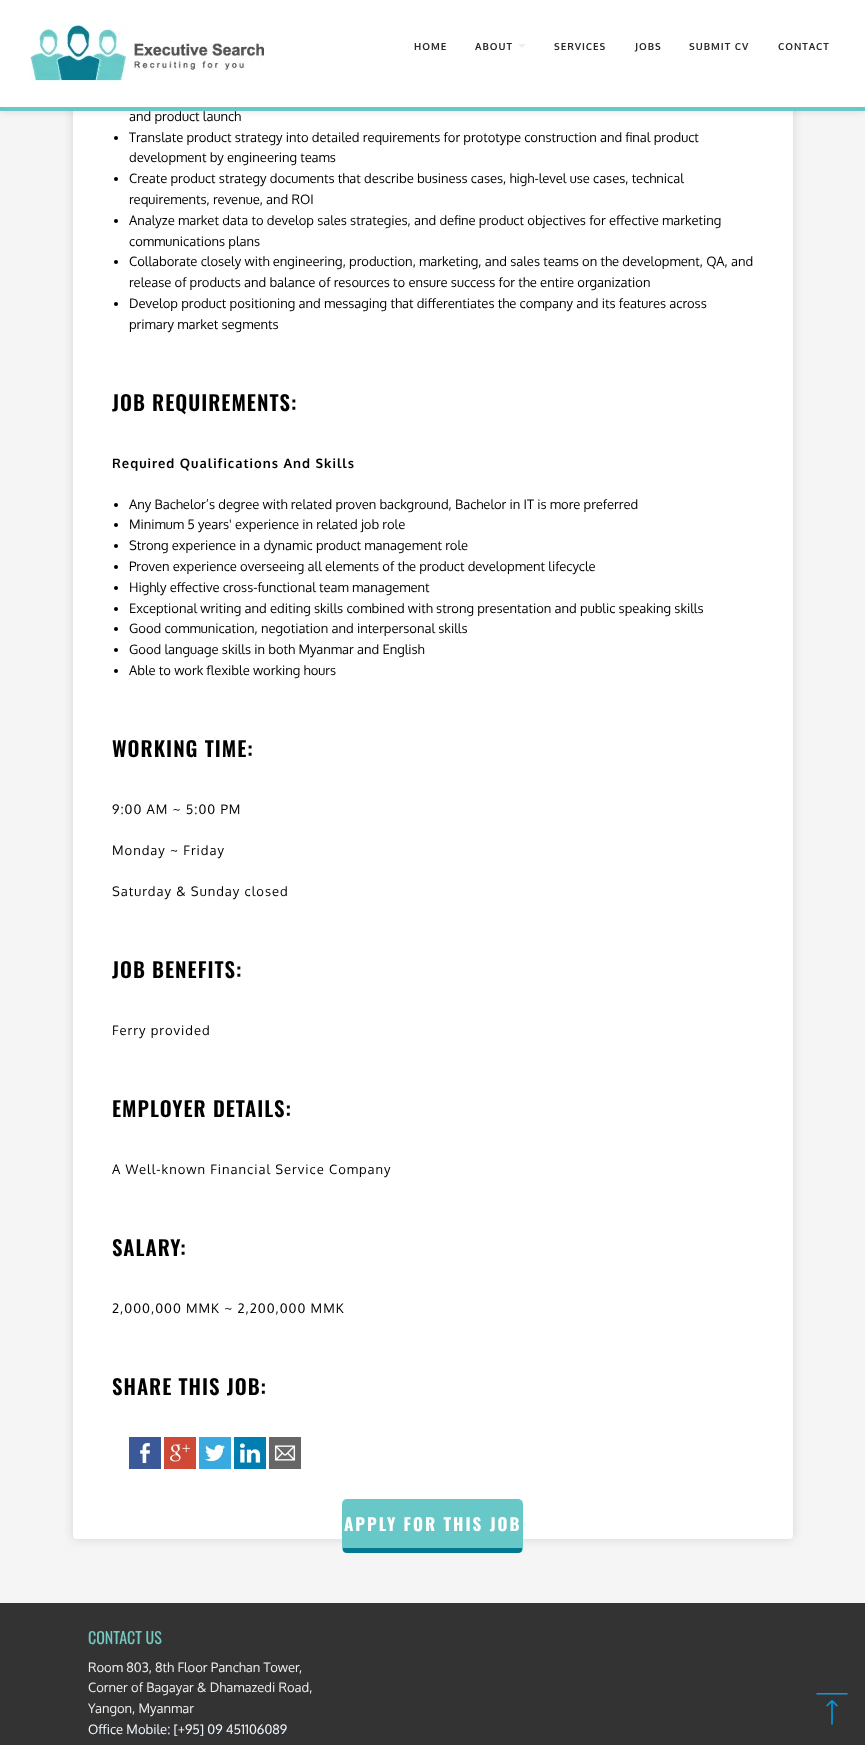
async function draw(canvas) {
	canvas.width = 865;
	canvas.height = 1745;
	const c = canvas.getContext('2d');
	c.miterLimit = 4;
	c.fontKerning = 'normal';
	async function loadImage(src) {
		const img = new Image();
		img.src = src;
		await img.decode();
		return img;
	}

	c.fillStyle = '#f5f5f5';
	c.fillRect(0, 0, 865, 1745);
	c.fillStyle = '#d3d3d3';
	c.filter = 'blur(5px)';
	c.beginPath();
	c.roundRect(73, -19, 720, 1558, 4);
	c.fill();
	c.filter = 'none';
	c.fillStyle = '#fff';
	c.beginPath();
	c.roundRect(73, -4, 720, 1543, 4);
	c.fill();
	c.fillStyle = '#0000001a';
	c.filter = 'blur(3px)';
	c.beginPath();
	c.rect(0, 1, 865, 111);
	c.fill();
	c.filter = 'none';
	c.fillStyle = '#fff';
	c.fillRect(0, 0, 865, 107);
	c.fillStyle = '#68c8c7';
	c.fillRect(0, 107, 865, 4);
	c.drawImage(await loadImage('img1.png'), 29, 22, 236, 62);
	c.letterSpacing = '1px';
	c.font = 'bold 9.75px Oxygen';
	c.fillStyle = '#27292b';
	c.fillText('HOME', 414, 50);
	c.fillText('ABOUT', 475, 50);
	c.fillStyle = '#f0eded';
	c.beginPath();
	c.moveTo(518, 44);
	c.lineTo(526, 44);
	c.lineTo(522, 48);
	c.closePath();
	c.fill();
	c.fillStyle = '#27292b';
	for (const [text, x, y] of [
		['SERVICES', 554, 50],
		['JOBS', 635, 50],
		['SUBMIT CV', 689, 50],
		['CONTACT', 778, 50],
	]) {
		c.fillText(text, x, y);
	}
	c.letterSpacing = '0px';
	c.font = '13px Oxygen';
	c.fillStyle = '#000';
	c.fillText('and product launch', 129, 121);
	c.beginPath();
	c.arc(116, 138, 2, 0, 2 * Math.PI);
	c.fill();
	c.fillText('Translate product strategy into detailed requirements for prototype construction and final product', 129, 142);
	c.fillText('development by engineering teams', 129, 162);
	c.beginPath();
	c.arc(116, 179, 2, 0, 2 * Math.PI);
	c.fill();
	c.fillText('Create product strategy documents that describe business cases, high-level use cases, technical', 129, 183);
	c.fillText('requirements, revenue, and ROI', 129, 204);
	c.beginPath();
	c.arc(116, 221, 2, 0, 2 * Math.PI);
	c.fill();
	c.fillText('Analyze market data to develop sales strategies, and define product objectives for effective marketing', 129, 225);
	c.fillText('communications plans', 129, 246);
	c.beginPath();
	c.arc(116, 262, 2, 0, 2 * Math.PI);
	c.fill();
	c.fillText('Collaborate closely with engineering, production, marketing, and sales teams on the development, QA, and', 129, 266);
	c.fillText('release of products and balance of resources to ensure success for the entire organization', 129, 287);
	c.beginPath();
	c.arc(116, 304, 2, 0, 2 * Math.PI);
	c.fill();
	c.fillText('Develop product positioning and messaging that differentiates the company and its features across', 129, 308);
	c.fillText('primary market segments', 129, 329);
	c.letterSpacing = '1px';
	c.font = '600 20.75px Oswald';
	c.fillText('JOB REQUIREMENTS:', 112, 411);
	c.font = 'bold 13px Oxygen';
	c.fillText('Required Qualifications And Skills', 112, 468);
	c.beginPath();
	c.arc(116, 505, 2, 0, 2 * Math.PI);
	c.fill();
	c.letterSpacing = '0px';
	c.font = '13px Oxygen';
	c.fillText('Any Bachelor’s degree with related proven background, Bachelor in IT is more preferred', 129, 509);
	c.beginPath();
	c.arc(116, 525, 2, 0, 2 * Math.PI);
	c.fill();
	c.fillText('Minimum 5 years\' experience in related job role', 129, 529);
	c.beginPath();
	c.arc(116, 546, 2, 0, 2 * Math.PI);
	c.fill();
	c.fillText('Strong experience in a dynamic product management role', 129, 550);
	c.beginPath();
	c.arc(116, 567, 2, 0, 2 * Math.PI);
	c.fill();
	c.fillText('Proven experience overseeing all elements of the product development lifecycle', 129, 571);
	c.beginPath();
	c.arc(116, 588, 2, 0, 2 * Math.PI);
	c.fill();
	c.fillText('Highly effective cross-functional team management', 129, 592);
	c.beginPath();
	c.arc(116, 609, 2, 0, 2 * Math.PI);
	c.fill();
	c.fillText('Exceptional writing and editing skills combined with strong presentation and public speaking skills', 129, 613);
	c.beginPath();
	c.arc(116, 629, 2, 0, 2 * Math.PI);
	c.fill();
	c.fillText('Good communication, negotiation and interpersonal skills', 129, 633);
	c.beginPath();
	c.arc(116, 650, 2, 0, 2 * Math.PI);
	c.fill();
	c.fillText('Good language skills in both Myanmar and English', 129, 654);
	c.beginPath();
	c.arc(116, 671, 2, 0, 2 * Math.PI);
	c.fill();
	c.fillText('Able to work flexible working hours', 129, 675);
	c.letterSpacing = '1px';
	c.font = '600 20.75px Oswald';
	c.fillText('WORKING TIME:', 112, 757);
	c.font = '13px Oxygen';
	for (const [text, x, y] of [
		['9:00 AM ~ 5:00 PM', 112, 814],
		['Monday ~ Friday', 112, 855],
		['Saturday & Sunday closed', 112, 896],
	]) {
		c.fillText(text, x, y);
	}
	c.font = '600 20.75px Oswald';
	c.fillText('JOB BENEFITS:', 112, 978);
	c.font = '13px Oxygen';
	c.fillText('Ferry provided', 112, 1035);
	c.font = '600 20.75px Oswald';
	c.fillText('EMPLOYER DETAILS:', 112, 1117);
	c.font = '13px Oxygen';
	c.fillText('A Well-known Financial Service Company', 112, 1174);
	c.font = '600 20.75px Oswald';
	c.fillText('SALARY:', 112, 1256);
	c.font = '13px Oxygen';
	c.fillText('2,000,000 MMK ~ 2,200,000 MMK', 112, 1313);
	c.font = '600 20.75px Oswald';
	c.fillText('SHARE THIS JOB:', 112, 1395);
	c.drawImage(await loadImage('img2.png'), 129, 1437, 32, 32);
	c.drawImage(await loadImage('img3.png'), 164, 1437, 32, 32);
	c.drawImage(await loadImage('img4.png'), 199, 1437, 32, 32);
	c.drawImage(await loadImage('img5.png'), 234, 1437, 32, 32);
	c.drawImage(await loadImage('img6.png'), 269, 1437, 32, 32);
	c.fillStyle = '#68c8c7';
	c.beginPath();
	c.roundRect(342, 1499, 181, 54, 5);
	c.fill();
	c.fillStyle = '#01798f';
	c.beginPath();
	c.moveTo(347, 1553);
	c.lineTo(518, 1553);
	c.bezierCurveTo(520, 1553, 522, 1552, 522, 1550);
	c.lineTo(522, 1548);
	c.lineTo(343, 1548);
	c.lineTo(343, 1550);
	c.bezierCurveTo(343, 1552, 345, 1553, 347, 1553);
	c.closePath();
	c.fill();
	c.letterSpacing = '2px';
	c.font = 'bold 17px Oswald';
	c.fillStyle = '#fff';
	c.fillText('APPLY FOR THIS JOB', 344, 1531);
	c.fillStyle = '#333';
	c.fillRect(0, 1603, 865, 142);
	c.letterSpacing = '0px';
	c.font = '16px Oswald';
	c.fillStyle = '#76c9c0';
	c.fillText('CONTACT US', 88, 1644);
	c.font = '13px Oxygen';
	c.fillStyle = '#f0eded';
	for (const [text, x, y] of [
		['Room 803, 8th Floor Panchan Tower,', 88, 1672],
		['Corner of Bagayar & Dhamazedi Road,', 88, 1692],
		['Yangon, Myanmar', 88, 1713],
	]) {
		c.fillText(text, x, y);
	}
	c.fillStyle = '#f0f8ff';
	c.fillText('Office Mobile: [+95] 09 451106089', 88, 1734);
	c.drawImage(await loadImage('img7.png'), 816, 1693, 32, 32);
}

draw(document.querySelector('canvas'));
